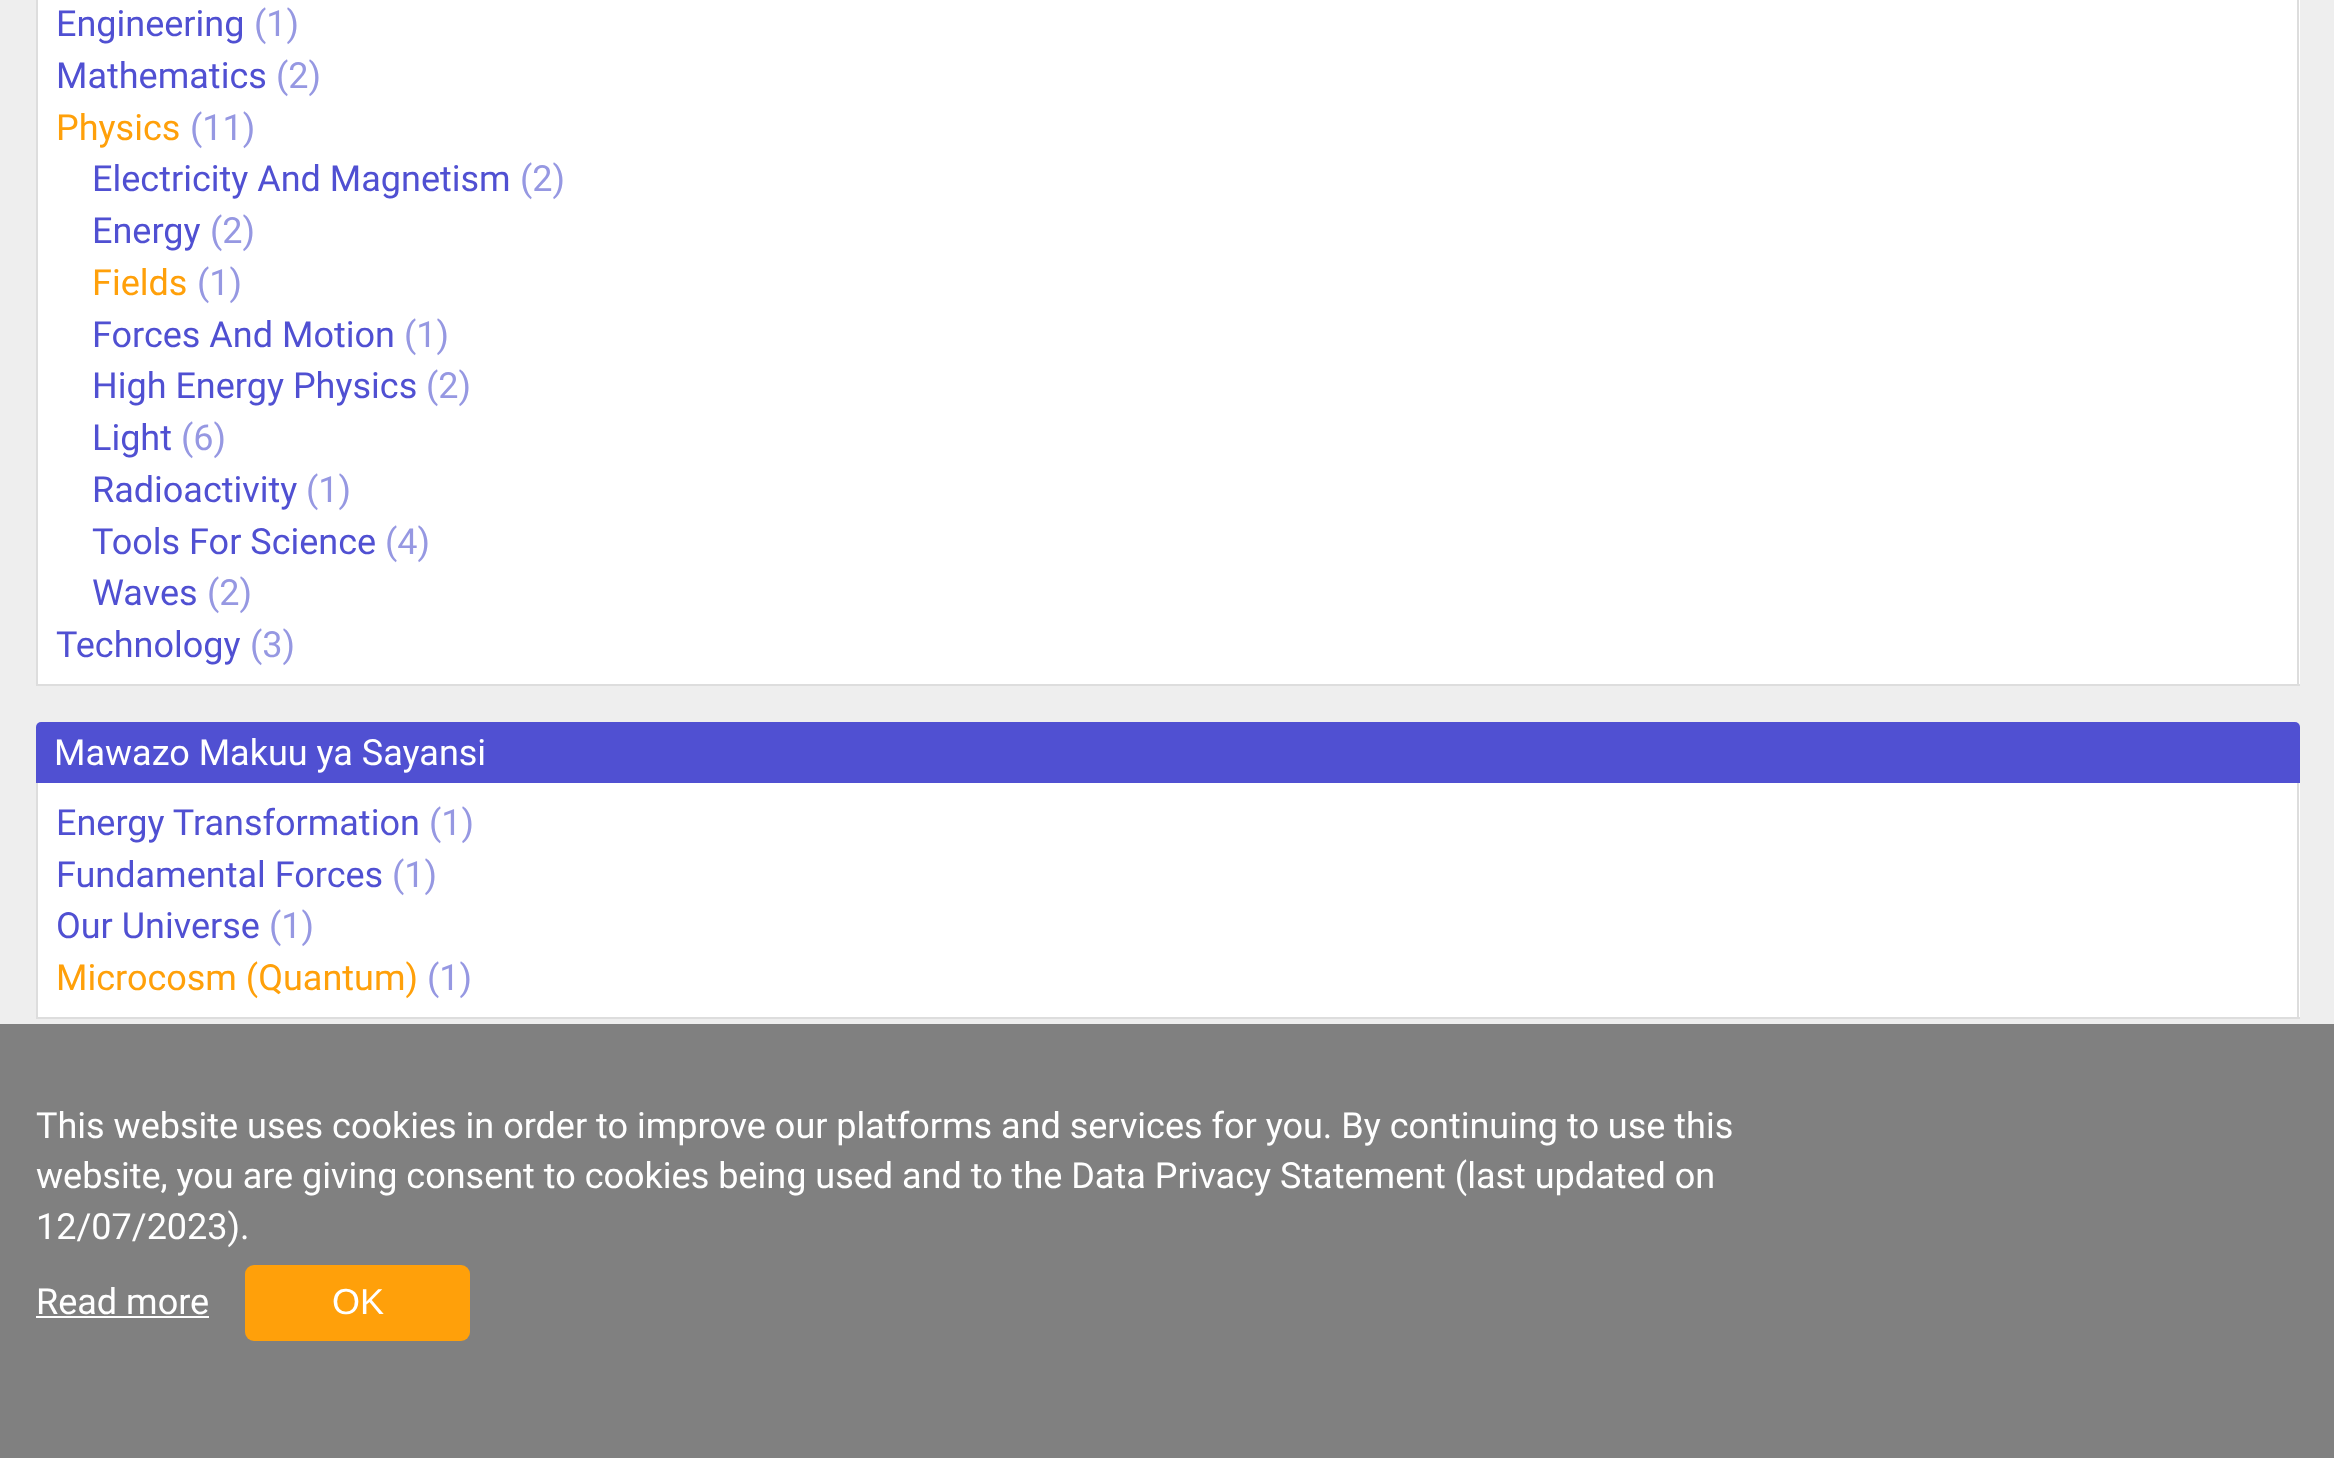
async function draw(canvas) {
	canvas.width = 2334;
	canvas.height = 1458;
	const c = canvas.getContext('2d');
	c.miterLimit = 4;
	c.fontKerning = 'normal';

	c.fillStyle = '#eee';
	c.fillRect(0, 0, 2334, 1458);
	for (const [x, y, w, h, color] of [
		[38, 0, 2262, 684, '#fff'],
		[2297, 0, 2, 686, '#ddd'],
		[36, 684, 2264, 2, '#ddd'],
		[36, 0, 2, 686, '#ddd'],
	]) {
		c.fillStyle = color;
		c.fillRect(x, y, w, h);
	}
	c.font = '36px Roboto';
	c.fillStyle = '#5050d2';
	c.fillText('Engineering', 56, 36);
	c.fillStyle = '#9698e2';
	c.fillText('(1)', 254, 36);
	c.fillStyle = '#5050d2';
	c.fillText('Mathematics', 56, 88);
	c.fillStyle = '#9698e2';
	c.fillText('(2)', 276, 88);
	c.fillStyle = '#ffa00a';
	c.fillText('Physics', 56, 140);
	c.fillStyle = '#9698e2';
	c.fillText('(11)', 190, 140);
	c.fillStyle = '#5050d2';
	c.fillText('Electricity And Magnetism', 92, 191);
	c.fillStyle = '#9698e2';
	c.fillText('(2)', 520, 191);
	c.fillStyle = '#5050d2';
	c.fillText('Energy', 92, 243);
	c.fillStyle = '#9698e2';
	c.fillText('(2)', 210, 243);
	c.fillStyle = '#ffa00a';
	c.fillText('Fields', 92, 295);
	c.fillStyle = '#9698e2';
	c.fillText('(1)', 197, 295);
	c.fillStyle = '#5050d2';
	c.fillText('Forces And Motion', 92, 347);
	c.fillStyle = '#9698e2';
	c.fillText('(1)', 404, 347);
	c.fillStyle = '#5050d2';
	c.fillText('High Energy Physics', 92, 398);
	c.fillStyle = '#9698e2';
	c.fillText('(2)', 426, 398);
	c.fillStyle = '#5050d2';
	c.fillText('Light', 92, 450);
	c.fillStyle = '#9698e2';
	c.fillText('(6)', 181, 450);
	c.fillStyle = '#5050d2';
	c.fillText('Radioactivity', 92, 502);
	c.fillStyle = '#9698e2';
	c.fillText('(1)', 306, 502);
	c.fillStyle = '#5050d2';
	c.fillText('Tools For Science', 92, 554);
	c.fillStyle = '#9698e2';
	c.fillText('(4)', 385, 554);
	c.fillStyle = '#5050d2';
	c.fillText('Waves', 92, 605);
	c.fillStyle = '#9698e2';
	c.fillText('(2)', 207, 605);
	c.fillStyle = '#5050d2';
	c.fillText('Technology', 56, 657);
	c.fillStyle = '#9698e2';
	c.fillText('(3)', 250, 657);
	c.fillStyle = '#fff';
	c.beginPath();
	c.roundRect(36, 722, 2264, 297, [5, 5, 0, 0]);
	c.fill();
	c.fillStyle = '#5050d2';
	c.beginPath();
	c.roundRect(36, 722, 2264, 61, [5, 5, 0, 0]);
	c.fill();
	c.fillStyle = '#fff';
	c.fillText('Mawazo Makuu ya Sayansi', 54, 765);
	for (const [x, y, w, h, color] of [
		[2297, 783, 2, 236, '#ddd'],
		[36, 1017, 2264, 2, '#ddd'],
		[36, 783, 2, 236, '#ddd'],
	]) {
		c.fillStyle = color;
		c.fillRect(x, y, w, h);
	}
	c.fillStyle = '#5050d2';
	c.fillText('Energy Transformation', 56, 835);
	c.fillStyle = '#9698e2';
	c.fillText('(1)', 429, 835);
	c.fillStyle = '#5050d2';
	c.fillText('Fundamental Forces', 56, 887);
	c.fillStyle = '#9698e2';
	c.fillText('(1)', 392, 887);
	c.fillStyle = '#5050d2';
	c.fillText('Our Universe', 56, 938);
	c.fillStyle = '#9698e2';
	c.fillText('(1)', 269, 938);
	c.fillStyle = '#ffa00a';
	c.fillText('Microcosm (Quantum)', 56, 990);
	c.fillStyle = '#9698e2';
	c.fillText('(1)', 427, 990);
	c.fillStyle = '#808080';
	c.fillRect(0, 1024, 2334, 434);
	c.fillStyle = '#fff';
	for (const [text, x, y] of [
		['This website uses cookies in order to improve our platforms and services for you. By continuing to use this', 36, 1138],
		['website, you are giving consent to cookies being used and to the Data Privacy Statement (last updated on', 36, 1188],
		['12/07/2023).', 36, 1239],
		['Read more', 36, 1314],
	]) {
		c.fillText(text, x, y);
	}
	c.fillRect(36, 1316, 173, 2);
	c.fillStyle = '#ffa00a';
	c.beginPath();
	c.roundRect(245, 1265, 225, 76, 9);
	c.fill();
	c.font = '36px Liberation Sans';
	c.fillStyle = '#fff';
	c.fillText('OK', 332, 1314);
}

draw(document.querySelector('canvas'));
